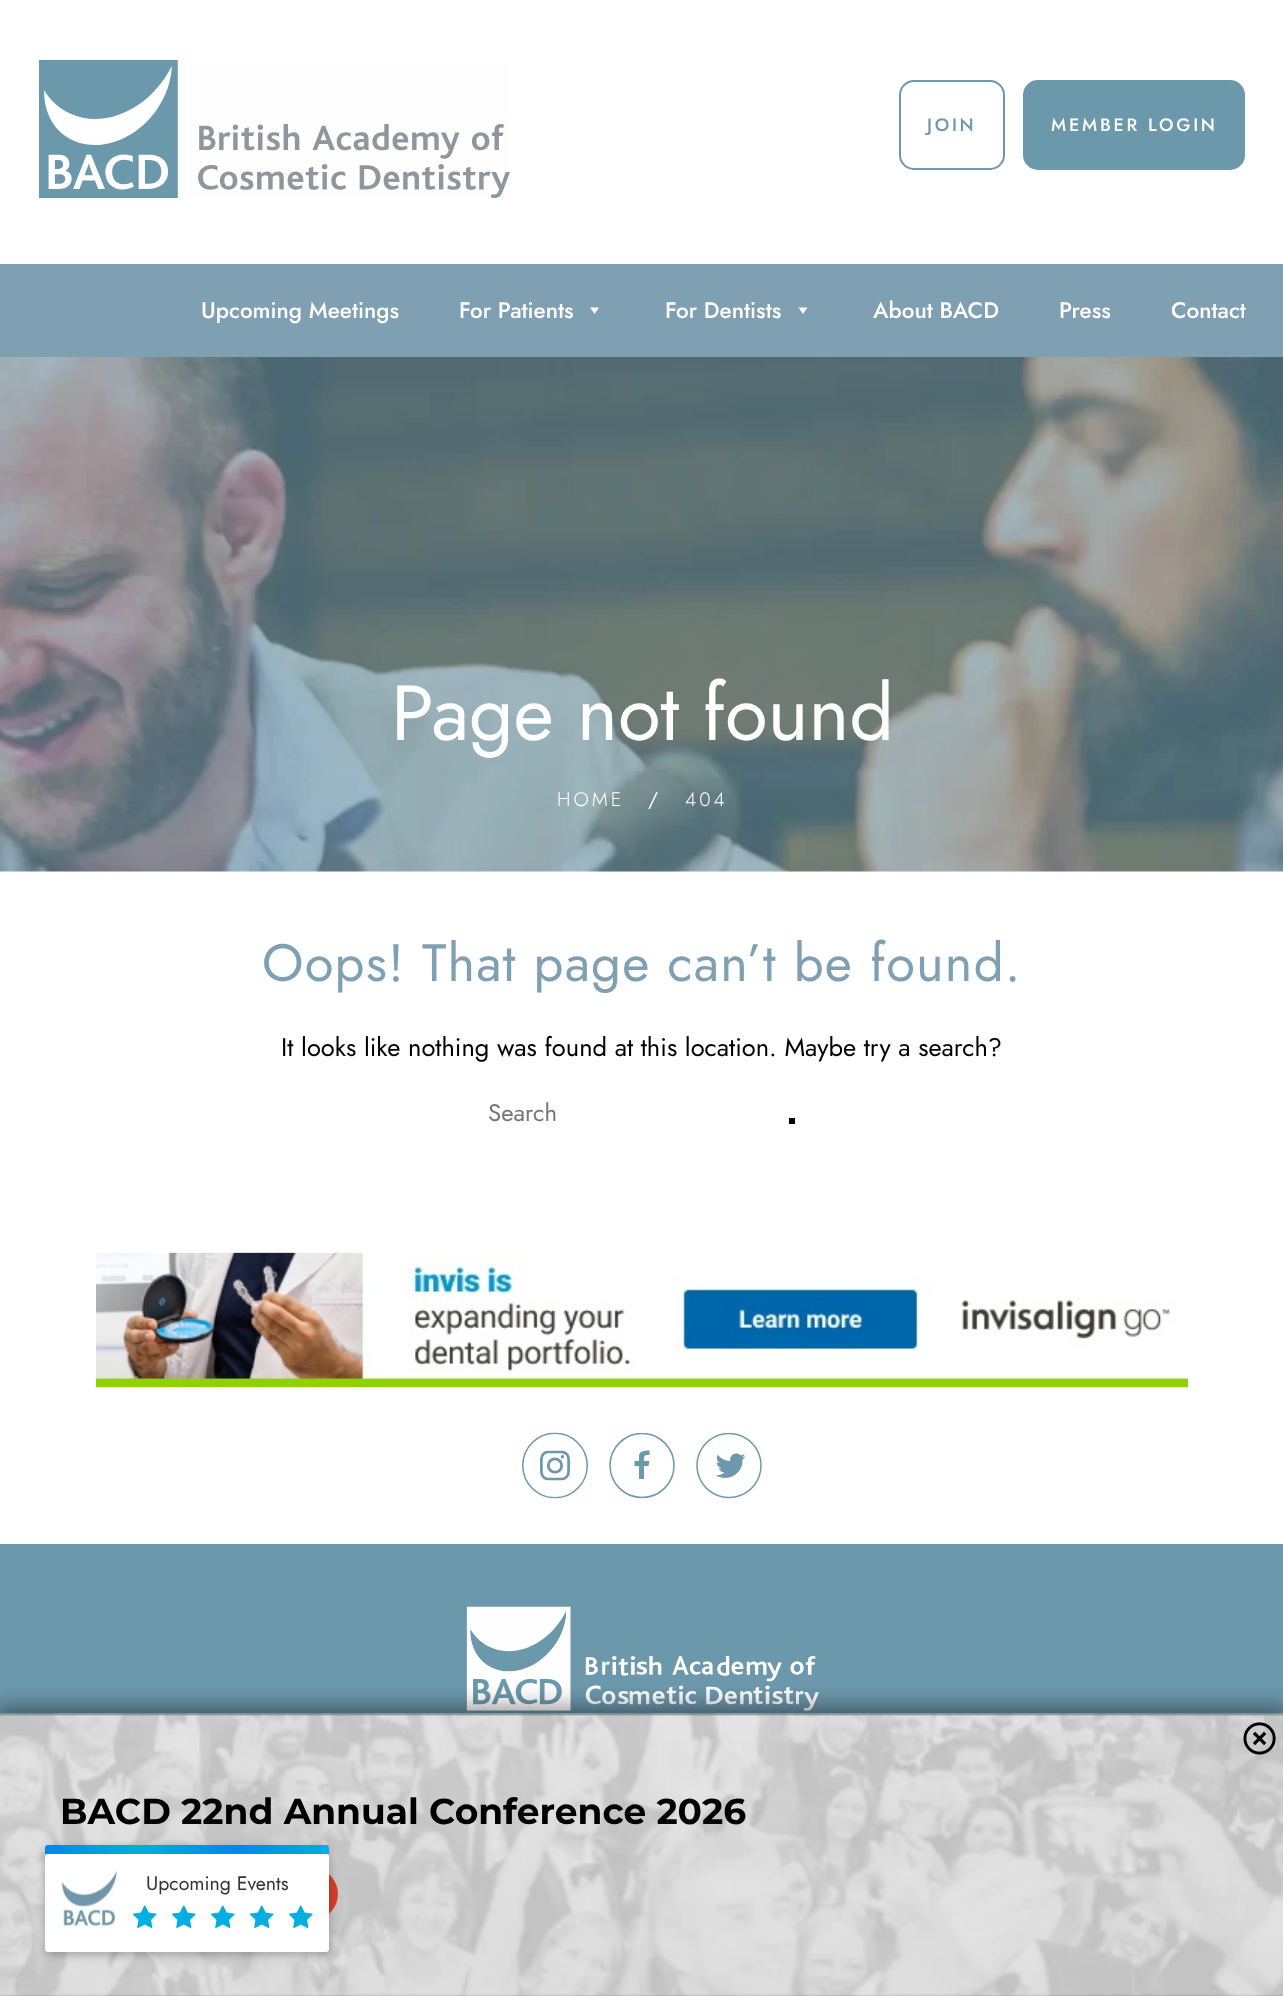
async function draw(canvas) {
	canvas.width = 1283;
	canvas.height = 1996;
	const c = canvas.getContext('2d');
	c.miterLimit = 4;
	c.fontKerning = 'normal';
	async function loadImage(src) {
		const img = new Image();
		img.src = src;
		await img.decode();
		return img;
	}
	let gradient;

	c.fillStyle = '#fff';
	c.fillRect(0, 0, 1283, 1996);
	c.drawImage(await loadImage('img1.png'), 39, 60, 471, 138);
	c.beginPath();
	c.roundRect(900, 81, 104, 88, 14);
	c.strokeStyle = '#6c98ac';
	c.lineWidth = 2;
	c.stroke();
	c.letterSpacing = '2.75px';
	c.font = '500 18px Jost';
	c.fillStyle = '#6c98ac';
	c.fillText('JOIN', 927, 131);
	c.beginPath();
	c.roundRect(1024, 81, 220, 88, 14);
	c.fill();
	c.stroke();
	c.fillStyle = '#fff';
	c.fillText('MEMBER LOGIN', 1051, 131);
	c.fillStyle = '#7fa0b2';
	c.fillRect(0, 264, 1283, 93);
	c.letterSpacing = '0px';
	c.font = '500 22.5px Jost';
	c.fillStyle = '#fff';
	c.fillText('Upcoming Meetings', 201, 318);
	c.fillText('For Patients', 459, 318);
	c.beginPath();
	c.moveTo(599, 307.5);
	c.lineTo(594.5, 314);
	c.lineTo(590, 307.5);
	c.closePath();
	c.fill();
	c.fillText('For Dentists', 665, 318);
	c.beginPath();
	c.moveTo(807.5, 307.5);
	c.lineTo(803, 314);
	c.lineTo(798.5, 307.5);
	c.closePath();
	c.fill();
	for (const [text, x, y] of [
		['About BACD', 873, 318],
		['Press', 1059, 318],
		['Contact', 1171, 318],
	]) {
		c.fillText(text, x, y);
	}
	c.drawImage(await loadImage('img2.png'), 0, 357, 1283, 515);
	c.font = '78px Jost';
	c.fillText('Page not found', 391, 740);
	c.letterSpacing = '3px';
	c.font = '300 19.5px Jost';
	c.fillText('HOME', 557, 806);
	c.font = '19.5px Jost';
	c.fillText('/', 648, 806);
	c.font = '300 19.5px Jost';
	c.fillText('404', 685, 806);
	c.letterSpacing = '1.2px';
	c.font = '52.5px Jost';
	c.fillStyle = '#7fa0b2';
	c.fillText('Oops! That page can’t be found.', 262, 981);
	c.letterSpacing = '0px';
	c.font = '25.5px Jost';
	c.fillStyle = '#000';
	c.fillText('It looks like nothing was found at this location. Maybe try a search?', 281, 1056);
	c.font = '24px Jost';
	c.fillStyle = '#757575';
	c.fillText('Search', 488, 1121);
	c.fillStyle = '#000';
	c.fillRect(789, 1118, 6, 6);
	c.drawImage(await loadImage('img3.png'), 96, 1252, 1092, 136);
	c.drawImage(await loadImage('img4.png'), 522, 1432, 66, 67);
	c.fillStyle = '#6c98ac';
	c.beginPath();
	c.moveTo(647, 1455);
	c.lineTo(649.5, 1455);
	c.lineTo(649.5, 1450.5);
	c.bezierCurveTo(645.5, 1450.5, 640, 1450.5, 639, 1455.5);
	c.lineTo(639, 1461);
	c.lineTo(634.5, 1461);
	c.lineTo(634.5, 1466);
	c.lineTo(639, 1466);
	c.lineTo(639, 1479);
	c.lineTo(644, 1479);
	c.lineTo(644, 1466);
	c.lineTo(648.5, 1466);
	c.lineTo(649.5, 1461);
	c.lineTo(644, 1461);
	c.bezierCurveTo(644, 1458.5, 643.5, 1455, 647, 1455);
	c.closePath();
	c.fill();
	c.save();
	c.beginPath();
	c.rect(609, 1433, 66, 66);
	c.clip();
	c.beginPath();
	c.arc(642, 1465.5, 32, 0, 2 * Math.PI);
	c.lineWidth = 1.5;
	c.stroke();
	c.restore();
	c.drawImage(await loadImage('img5.png'), 696, 1433, 66, 66);
	c.fillRect(0, 1544, 1283, 171);
	c.fillStyle = '#61899b';
	c.fillRect(0, 1715, 1283, 281);
	c.drawImage(await loadImage('img6.png'), 466, 1606, 353, 105);
	c.save();
	c.beginPath();
	c.rect(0, 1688, 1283, 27);
	c.clip();
	c.fillStyle = '#00000080';
	c.filter = 'blur(12px)';
	c.beginPath();
	c.rect(-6, 1709, 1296, 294);
	c.fill();
	c.filter = 'none';
	c.restore();
	c.drawImage(await loadImage('img7.png'), 0, 1713, 1283, 283);
	c.drawImage(await loadImage('img8.png'), 1243, 1722, 33, 33);
	c.font = '100 36px Montserrat';
	c.fillStyle = '#000';
	c.fillText('BACD 22nd Annual Conference 2026', 60, 1824);
	c.fillStyle = '#d3412a';
	c.beginPath();
	c.roundRect(180, 1868, 158, 52, 26);
	c.fill();
	c.fillStyle = '#00000042';
	c.filter = 'blur(4px)';
	c.beginPath();
	c.rect(45, 1848, 284, 107);
	c.fill();
	c.filter = 'none';
	gradient = c.createLinearGradient(45, 1850, 329, 1850);
	gradient.addColorStop(0, '#0287ed');
	gradient.addColorStop(0.33, '#03aee0');
	gradient.addColorStop(0.67, '#0287ed');
	gradient.addColorStop(1, '#03aee0');
	c.fillStyle = gradient;
	c.beginPath();
	c.roundRect(45, 1845, 284, 9, [3, 3, 0, 0]);
	c.fill();
	c.fillStyle = '#fff';
	c.beginPath();
	c.roundRect(45, 1854, 284, 98, 3);
	c.fill();
	c.drawImage(await loadImage('img9.png'), 60, 1869, 58, 60);
	c.font = '19.5px Jost';
	c.fillStyle = '#333';
	c.fillText('Upcoming Events', 146, 1890);
	c.drawImage(await loadImage('img10.png'), 133, 1905, 24, 23);
	c.drawImage(await loadImage('img10.png'), 172, 1905, 24, 23);
	c.drawImage(await loadImage('img10.png'), 211, 1905, 24, 23);
	c.drawImage(await loadImage('img10.png'), 250, 1905, 24, 23);
	c.drawImage(await loadImage('img10.png'), 289, 1905, 24, 23);
}

draw(document.querySelector('canvas'));
